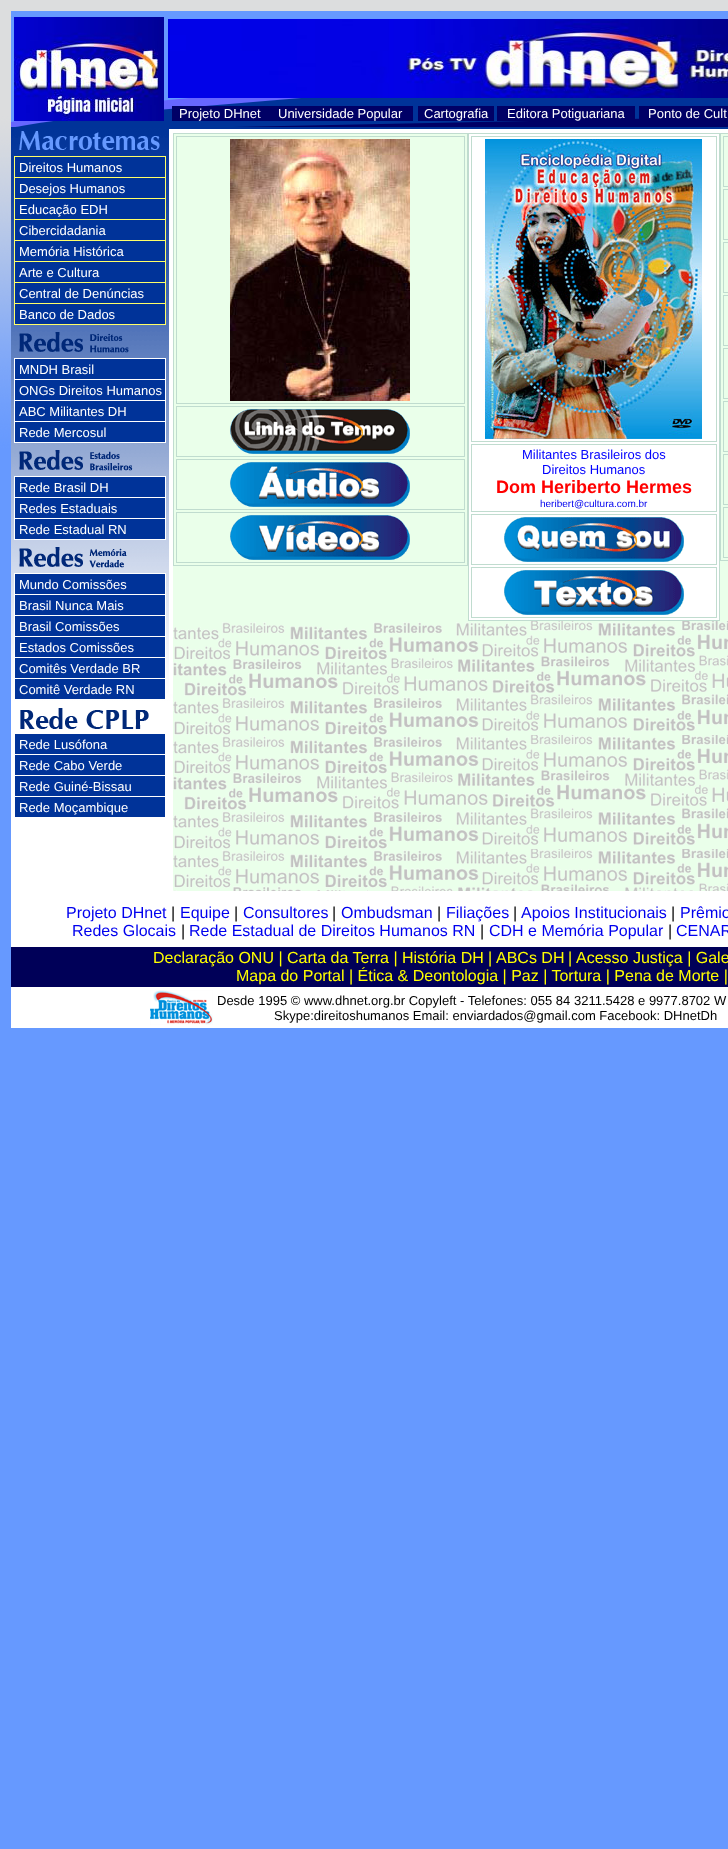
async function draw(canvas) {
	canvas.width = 728;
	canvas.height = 1849;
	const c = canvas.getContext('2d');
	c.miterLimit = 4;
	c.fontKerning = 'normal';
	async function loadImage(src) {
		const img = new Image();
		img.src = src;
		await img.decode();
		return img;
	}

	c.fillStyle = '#fff';
	c.fillRect(0, 0, 728, 1849);
	c.drawImage(await loadImage('img1.png'), 0, 0, 728, 1849);
	c.drawImage(await loadImage('img2.png'), 11, 11, 717, 116);
	c.drawImage(await loadImage('img3.png'), 14, 17, 150, 104);
	c.drawImage(await loadImage('img4.png'), 168, 19, 560, 79);
	c.fillStyle = '#006';
	c.fillRect(172, 106, 241, 15);
	c.font = '13px Liberation Sans';
	c.fillStyle = '#fff';
	c.fillText('Projeto DHnet', 179, 118);
	c.fillText('Universidade Popular', 278, 118);
	c.fillStyle = '#006';
	c.fillRect(418, 106, 76, 15);
	c.fillStyle = '#fff';
	c.fillText('Cartografia', 424, 118);
	c.fillStyle = '#006';
	c.fillRect(497, 106, 138, 15);
	c.fillStyle = '#fff';
	c.fillText('Editora Potiguariana', 507, 118);
	c.fillStyle = '#006';
	c.fillRect(639, 106, 89, 13);
	c.fillStyle = '#fff';
	c.fillText('Ponto de Cult', 648, 118);
	c.drawImage(await loadImage('img5.png'), 11, 127, 717, 770);
	c.drawImage(await loadImage('img6.png'), 19, 131, 141, 19);
	c.fillStyle = '#ff6';
	c.fillRect(14, 156, 152, 169);
	c.fillStyle = '#039';
	c.fillRect(15, 157, 150, 20);
	c.fillStyle = '#fff';
	c.fillText('Direitos Humanos', 19, 172);
	c.fillStyle = '#039';
	c.fillRect(15, 178, 150, 20);
	c.fillStyle = '#fff';
	c.fillText('Desejos Humanos', 19, 193);
	c.fillStyle = '#039';
	c.fillRect(15, 199, 150, 20);
	c.fillStyle = '#fff';
	c.fillText('Educação EDH', 19, 214);
	c.fillStyle = '#039';
	c.fillRect(15, 220, 150, 20);
	c.fillStyle = '#fff';
	c.fillText('Cibercidadania', 19, 235);
	c.fillStyle = '#039';
	c.fillRect(15, 241, 150, 20);
	c.fillStyle = '#fff';
	c.fillText('Memória Histórica', 19, 256);
	c.fillStyle = '#039';
	c.fillRect(15, 262, 150, 20);
	c.fillStyle = '#fff';
	c.fillText('Arte e Cultura', 19, 277);
	c.fillStyle = '#039';
	c.fillRect(15, 283, 150, 20);
	c.fillStyle = '#fff';
	c.fillText('Central de Denúncias', 19, 298);
	c.fillStyle = '#039';
	c.fillRect(15, 304, 150, 20);
	c.fillStyle = '#fff';
	c.fillText('Banco de Dados', 19, 319);
	c.drawImage(await loadImage('img7.png'), 19, 332, 110, 21);
	c.fillRect(14, 358, 152, 85);
	c.fillStyle = '#039';
	c.fillRect(15, 359, 150, 20);
	c.fillStyle = '#fff';
	c.fillText('MNDH Brasil', 19, 374);
	c.fillStyle = '#039';
	c.fillRect(15, 380, 150, 20);
	c.fillStyle = '#fff';
	c.fillText('ONGs Direitos Humanos', 19, 395);
	c.fillStyle = '#039';
	c.fillRect(15, 401, 150, 20);
	c.fillStyle = '#fff';
	c.fillText('ABC Militantes DH', 19, 416);
	c.fillStyle = '#039';
	c.fillRect(15, 422, 150, 20);
	c.fillStyle = '#fff';
	c.fillText('Rede Mercosul', 19, 437);
	c.drawImage(await loadImage('img8.png'), 19, 450, 114, 21);
	c.fillRect(14, 476, 152, 64);
	c.fillStyle = '#039';
	c.fillRect(15, 477, 150, 20);
	c.fillStyle = '#fff';
	c.fillText('Rede Brasil DH', 19, 492);
	c.fillStyle = '#039';
	c.fillRect(15, 498, 150, 20);
	c.fillStyle = '#fff';
	c.fillText('Redes Estaduais', 19, 513);
	c.fillStyle = '#039';
	c.fillRect(15, 519, 150, 20);
	c.fillStyle = '#fff';
	c.fillText('Rede Estadual RN', 19, 534);
	c.drawImage(await loadImage('img9.png'), 19, 547, 108, 21);
	c.fillRect(14, 573, 152, 121);
	c.fillStyle = '#039';
	c.fillRect(15, 574, 150, 20);
	c.fillStyle = '#fff';
	c.fillText('Mundo Comissões', 19, 589);
	c.fillStyle = '#039';
	c.fillRect(15, 595, 150, 20);
	c.fillStyle = '#fff';
	c.fillText('Brasil Nunca Mais', 19, 610);
	c.fillStyle = '#039';
	c.fillRect(15, 616, 150, 20);
	c.fillStyle = '#fff';
	c.fillText('Brasil Comissões', 19, 631);
	c.fillStyle = '#039';
	c.fillRect(15, 637, 150, 20);
	c.fillStyle = '#fff';
	c.fillText('Estados Comissões', 19, 652);
	c.fillStyle = '#039';
	c.fillRect(15, 658, 150, 20);
	c.fillStyle = '#fff';
	c.fillText('Comitês Verdade BR', 19, 673);
	c.fillStyle = '#039';
	c.fillRect(15, 679, 150, 20);
	c.fillStyle = '#fff';
	c.fillText('Comitê Verdade RN', 19, 694);
	c.drawImage(await loadImage('img10.png'), 20, 708, 129, 21);
	c.fillStyle = '#039';
	c.fillRect(15, 734, 150, 20);
	c.fillStyle = '#fff';
	c.fillText('Rede Lusófona', 19, 749);
	c.fillStyle = '#039';
	c.fillRect(15, 755, 150, 20);
	c.fillStyle = '#fff';
	c.fillText('Rede Cabo Verde', 19, 770);
	c.fillStyle = '#039';
	c.fillRect(15, 776, 150, 20);
	c.fillStyle = '#fff';
	c.fillText('Rede Guiné-Bissau', 19, 791);
	c.fillStyle = '#039';
	c.fillRect(15, 797, 150, 20);
	c.fillStyle = '#fff';
	c.fillText('Rede Moçambique', 19, 812);
	c.fillRect(169, 129, 559, 565);
	c.fillStyle = '#eaffea';
	c.fillRect(173, 134, 295, 487);
	c.strokeStyle = '#c0dccf';
	c.strokeRect(173.5, 133.5, 294, 432);
	c.strokeRect(176.5, 136.5, 288, 267);
	c.drawImage(await loadImage('img11.png'), 230, 139, 180, 262);
	c.strokeRect(176.5, 406.5, 288, 50);
	c.drawImage(await loadImage('img12.png'), 230, 409, 180, 45);
	c.strokeRect(176.5, 459.5, 288, 50);
	c.drawImage(await loadImage('img13.png'), 230, 462, 180, 45);
	c.strokeRect(176.5, 512.5, 288, 50);
	c.drawImage(await loadImage('img14.png'), 230, 515, 180, 45);
	c.strokeRect(468.5, 133.5, 251, 487);
	c.strokeRect(471.5, 136.5, 245, 305);
	c.drawImage(await loadImage('img15.png'), 485, 139, 217, 300);
	c.strokeRect(471.5, 444.5, 245, 67);
	c.fillStyle = '#00f';
	c.fillText('Militantes Brasileiros dos', 522, 459);
	c.fillText('Direitos Humanos', 542, 474);
	c.font = 'bold 18px Liberation Sans';
	c.fillStyle = '#f00';
	c.fillText('Dom Heriberto Hermes', 496, 493);
	c.font = '10px Liberation Sans';
	c.fillStyle = '#00e';
	c.fillText('heribert@cultura.com.br', 540, 507);
	c.strokeRect(471.5, 514.5, 245, 50);
	c.drawImage(await loadImage('img16.png'), 504, 517, 180, 45);
	c.strokeRect(471.5, 567.5, 245, 50);
	c.drawImage(await loadImage('img17.png'), 504, 570, 180, 45);
	c.fillStyle = '#eaffea';
	c.fillRect(720, 133, 8, 488);
	c.strokeRect(720.5, 133.5, 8, 427);
	c.strokeRect(723.5, 136.5, 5, 50);
	c.strokeRect(723.5, 189.5, 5, 50);
	c.strokeRect(723.5, 242.5, 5, 50);
	c.strokeRect(723.5, 295.5, 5, 50);
	c.strokeRect(723.5, 348.5, 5, 50);
	c.strokeRect(723.5, 401.5, 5, 50);
	c.strokeRect(723.5, 454.5, 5, 50);
	c.strokeRect(723.5, 507.5, 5, 50);
	c.fillRect(173, 621, 555, 270);
	c.drawImage(await loadImage('img18.png'), 173, 621, 555, 270);
	c.fillStyle = '#fff';
	c.fillRect(11, 897, 717, 50);
	c.font = '16px Liberation Sans';
	c.fillStyle = '#00e';
	c.fillText('Projeto DHnet', 66, 918);
	c.fillStyle = '#000';
	c.fillText('|', 171, 918);
	c.fillStyle = '#00e';
	c.fillText('Equipe', 180, 918);
	c.fillStyle = '#000';
	c.fillText('|', 234, 918);
	c.fillStyle = '#00e';
	c.fillText('Consultores', 243, 918);
	c.fillStyle = '#000';
	c.fillText('|', 332, 918);
	c.fillStyle = '#00e';
	c.fillText('Ombudsman', 341, 918);
	c.fillStyle = '#000';
	c.fillText('|', 437, 918);
	c.fillStyle = '#00e';
	c.fillText('Filiações', 446, 918);
	c.fillStyle = '#000';
	c.fillText('|', 513, 918);
	c.fillStyle = '#00e';
	c.fillText('Apoios Institucionais', 521, 918);
	c.fillStyle = '#000';
	c.fillText('|', 671, 918);
	c.fillStyle = '#00e';
	c.fillText('Prêmio', 680, 918);
	c.fillText('Redes Glocais', 72, 936);
	c.fillStyle = '#000';
	c.fillText('|', 181, 936);
	c.fillStyle = '#00e';
	c.fillText('Rede Estadual de Direitos Humanos RN', 189, 936);
	c.fillStyle = '#000';
	c.fillText('|', 480, 936);
	c.fillStyle = '#00e';
	c.fillText('CDH e Memória Popular', 489, 936);
	c.fillStyle = '#000';
	c.fillText('|', 668, 936);
	c.fillStyle = '#00e';
	c.fillText('CENAR', 676, 936);
	c.fillStyle = '#000058';
	c.fillRect(11, 947, 717, 40);
	c.fillStyle = '#ff0';
	for (const [text, x, y] of [
		['Declaração ONU | Carta da Terra | História DH', 153, 963],
		['|', 488, 963],
		['ABCs DH', 496, 963],
		['|', 568, 963],
		['Acesso Justiça | Gale', 576, 963],
		['Mapa do Portal | Ética & Deontologia | Paz | Tortura | Pena de Morte |', 236, 981],
	]) {
		c.fillText(text, x, y);
	}
	c.fillStyle = '#fff';
	c.fillRect(11, 987, 717, 41);
	c.drawImage(await loadImage('img19.png'), 150, 990, 63, 35);
	c.font = '13px Liberation Sans';
	c.fillStyle = '#000';
	c.fillText('Desde 1995 © www.dhnet.org.br Copyleft - Telefones: 055 84 3211.5428 e 9977.8702 W', 217, 1005);
	c.fillText('Skype:direitoshumanos Email: enviardados@gmail.com Facebook: DHnetDh', 274, 1020);
}

draw(document.querySelector('canvas'));
